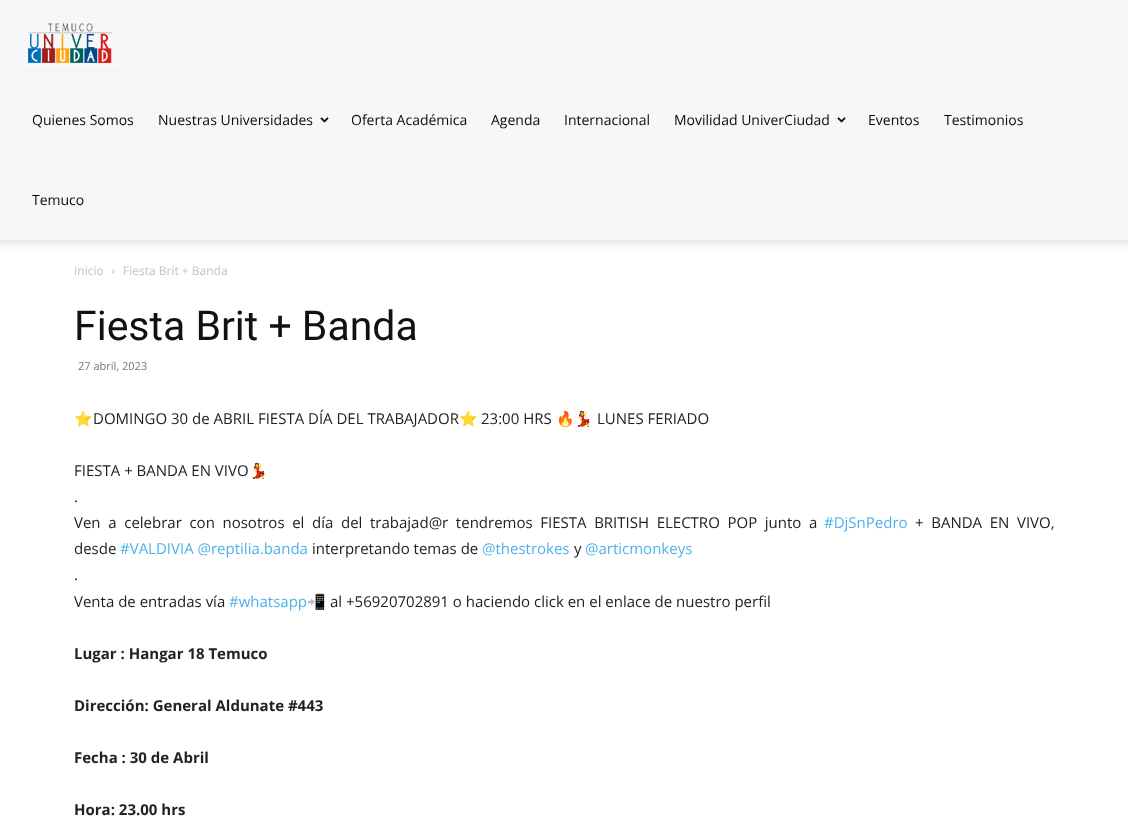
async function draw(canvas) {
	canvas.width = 1128;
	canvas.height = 825;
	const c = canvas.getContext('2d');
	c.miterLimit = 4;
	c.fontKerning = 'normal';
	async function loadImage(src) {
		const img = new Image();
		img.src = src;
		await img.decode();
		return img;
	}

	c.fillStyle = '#fff';
	c.fillRect(0, 0, 1128, 825);
	c.fillStyle = '#f7f7f7';
	c.fillRect(0, 0, 1128, 240);
	c.drawImage(await loadImage('img1.png'), 20, 23, 100, 48);
	c.font = '14px Open Sans';
	c.fillStyle = '#0a0a0a';
	c.fillText('Quienes Somos', 32, 125);
	c.fillText('Nuestras Universidades', 158, 125);
	c.drawImage(await loadImage('img2.png'), 320, 117, 9, 6);
	for (const [text, x, y] of [
		['Oferta Académica', 351, 125],
		['Agenda', 491, 125],
		['Internacional', 564, 125],
		['Movilidad UniverCiudad', 674, 125],
	]) {
		c.fillText(text, x, y);
	}
	c.drawImage(await loadImage('img2.png'), 837, 117, 9, 6);
	for (const [text, x, y] of [
		['Eventos', 868, 125],
		['Testimonios', 944, 125],
		['Temuco', 32, 205],
	]) {
		c.fillText(text, x, y);
	}
	c.drawImage(await loadImage('img3.png'), 0, 240, 1128, 9);
	c.font = '12px Open Sans';
	c.fillStyle = '#c3c3c3';
	c.fillText('Inicio', 74, 275);
	c.drawImage(await loadImage('img4.png'), 112, 269, 3, 5);
	c.fillText('Fiesta Brit + Banda', 123, 275);
	c.font = '41px Roboto';
	c.fillStyle = '#111';
	c.fillText('Fiesta Brit + Banda', 74, 340);
	c.font = '11px Open Sans';
	c.fillStyle = '#767676';
	c.fillText('27 abril, 2023', 78, 370);
	c.font = '15px Noto Color Emoji';
	c.fillStyle = '#222';
	c.fillText('⭐️', 74, 424);
	c.font = '15px Open Sans';
	c.fillText('DOMINGO 30 de ABRIL FIESTA DÍA DEL TRABAJADOR', 93, 424);
	c.font = '15px Noto Color Emoji';
	c.fillText('⭐️', 459, 424);
	c.font = '15px Open Sans';
	c.fillText('23:00 HRS', 481, 424);
	c.font = '15px Noto Color Emoji';
	c.fillText('🔥💃', 556, 424);
	c.font = '15px Open Sans';
	c.fillText('LUNES FERIADO', 597, 424);
	c.fillText('FIESTA + BANDA EN VIVO', 74, 476);
	c.font = '15px Noto Color Emoji';
	c.fillText('💃', 249, 476);
	c.font = '15px Open Sans';
	c.fillText('.', 74, 502);
	c.wordSpacing = '3.75px';
	c.fillText('Ven a celebrar con nosotros el día del trabajad@r tendremos FIESTA BRITISH ELECTRO POP junto a', 74, 528);
	c.wordSpacing = '0px';
	c.fillStyle = '#4db2ec';
	c.fillText('#DjSnPedro', 824, 528);
	c.wordSpacing = '3.75px';
	c.fillStyle = '#222';
	c.fillText('+ BANDA EN VIVO,', 915, 528);
	c.wordSpacing = '0px';
	c.fillText('desde', 74, 554);
	c.fillStyle = '#4db2ec';
	c.fillText('#VALDIVIA @reptilia.banda', 120, 554);
	c.fillStyle = '#222';
	c.fillText('interpretando temas de', 312, 554);
	c.fillStyle = '#4db2ec';
	c.fillText('@thestrokes', 482, 554);
	c.fillStyle = '#222';
	c.fillText('y', 574, 554);
	c.fillStyle = '#4db2ec';
	c.fillText('@articmonkeys', 585, 554);
	c.fillStyle = '#222';
	c.fillText('.', 74, 580);
	c.fillText('Venta de entradas vía', 74, 607);
	c.fillStyle = '#4db2ec';
	c.fillText('#whatsapp', 229, 607);
	c.font = '15px Noto Color Emoji';
	c.fillText('📲', 307, 607);
	c.font = '15px Open Sans';
	c.fillStyle = '#222';
	c.fillText('al +56920702891 o haciendo click en el enlace de nuestro perfil', 330, 607);
	c.font = 'bold 15px Open Sans';
	for (const [text, x, y] of [
		['Lugar : Hangar 18 Temuco', 74, 659],
		['Dirección: General Aldunate #443', 74, 711],
		['Fecha : 30 de Abril', 74, 763],
		['Hora: 23.00 hrs', 74, 815],
	]) {
		c.fillText(text, x, y);
	}
}

draw(document.querySelector('canvas'));
